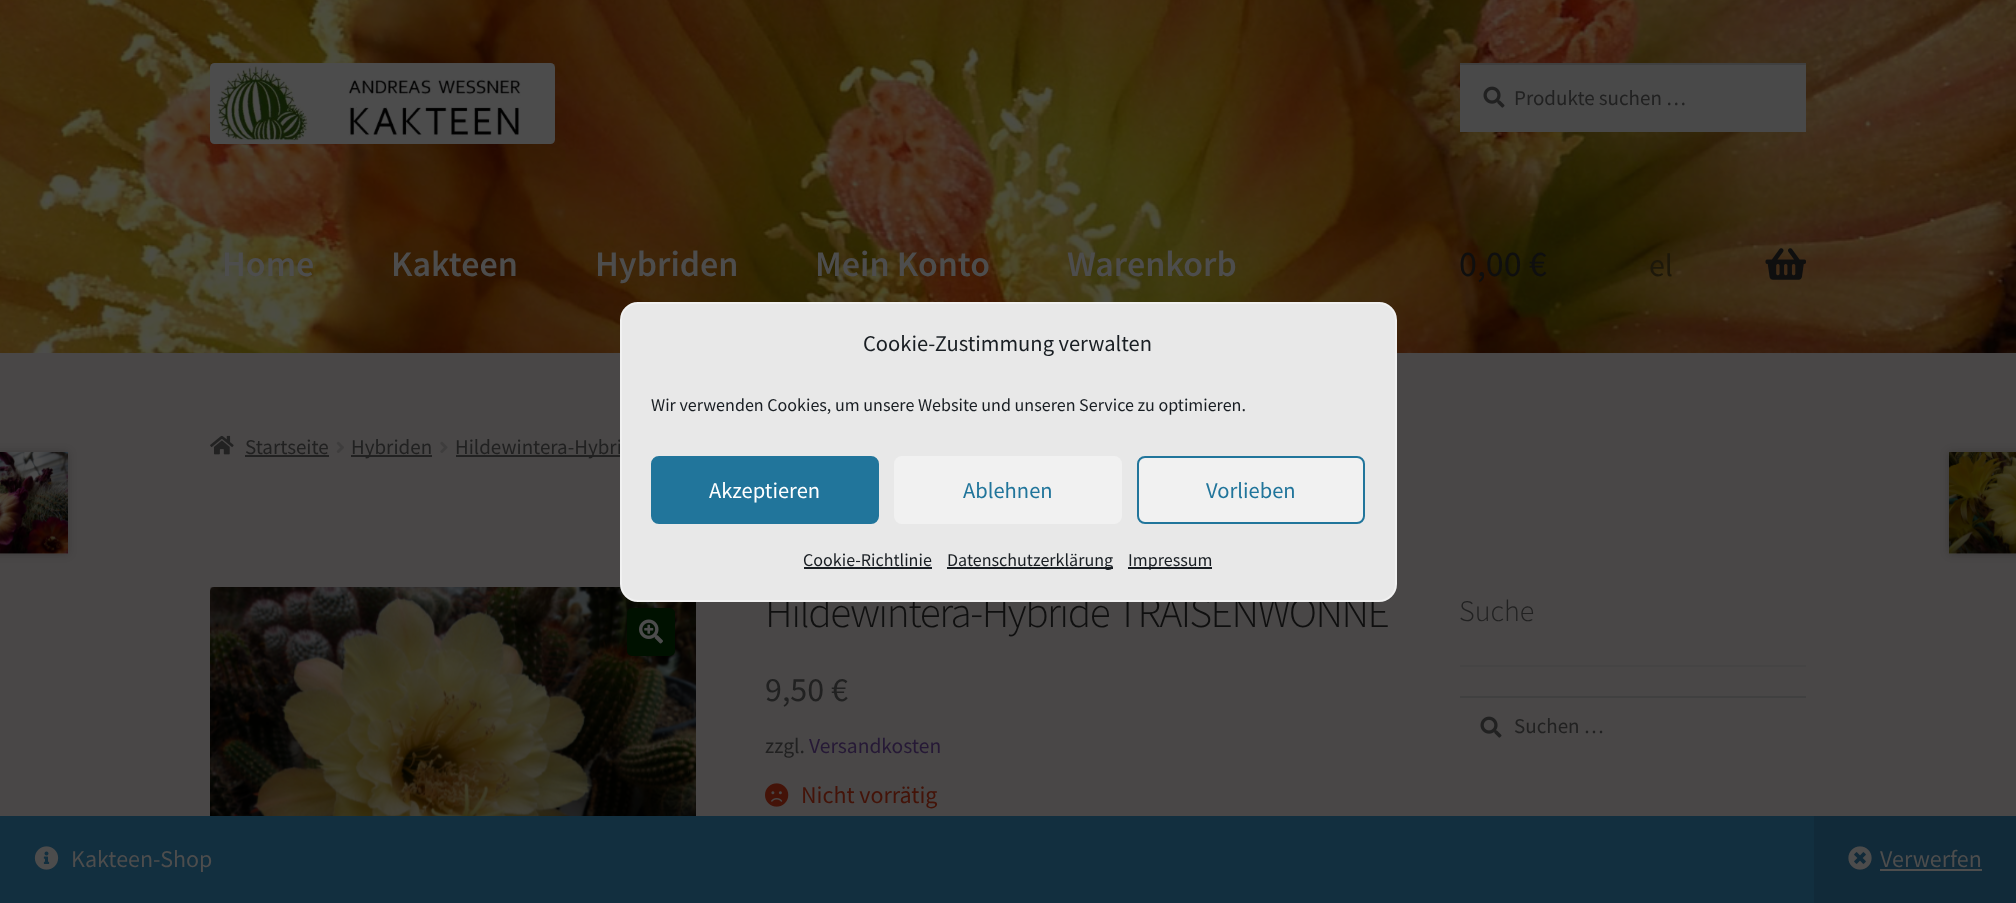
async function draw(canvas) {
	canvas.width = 2016;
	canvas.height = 903;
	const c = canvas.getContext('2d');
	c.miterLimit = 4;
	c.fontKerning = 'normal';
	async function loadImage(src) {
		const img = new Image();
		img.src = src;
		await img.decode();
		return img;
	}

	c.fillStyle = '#494747';
	c.fillRect(0, 0, 2016, 903);
	c.drawImage(await loadImage('img1.png'), 0, 0, 2016, 353);
	c.drawImage(await loadImage('img2.png'), 210, 63, 345, 81);
	c.fillStyle = '#494949';
	c.fillRect(1460, 65, 346, 67);
	c.drawImage(await loadImage('img3.png'), 1483, 86, 22, 22);
	c.fillStyle = '#404040';
	c.fillRect(1460, 63, 346, 2);
	c.font = '21px Source Sans Pro';
	c.fillStyle = '#212121';
	c.fillText('Produkte suchen …', 1514, 105);
	c.font = '600 36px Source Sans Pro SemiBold';
	c.fillStyle = '#4d4d4d';
	for (const [text, x, y] of [
		['Home', 222, 276],
		['Kakteen', 391, 276],
		['Hybriden', 595, 276],
		['Mein Konto', 815, 276],
		['Warenkorb', 1067, 276],
	]) {
		c.fillText(text, x, y);
	}
	c.font = '36px Source Sans Pro';
	c.fillStyle = '#0f0f0f';
	c.fillText('0,00 €', 1459, 276);
	c.font = '32px Source Sans Pro';
	c.fillStyle = '#1d180a';
	c.fillText('el', 1649, 276);
	c.drawImage(await loadImage('img4.png'), 1765, 248, 41, 32);
	c.drawImage(await loadImage('img5.png'), 210, 435, 24, 20);
	c.font = '21px Source Sans Pro';
	c.fillStyle = '#212121';
	c.fillText('Startseite', 245, 454);
	c.fillStyle = '#222';
	c.fillRect(245, 455, 84, 2);
	c.drawImage(await loadImage('img6.png'), 336, 441, 8, 12);
	c.fillRect(351, 455, 81, 2);
	c.fillStyle = '#212121';
	c.fillText('Hybriden', 351, 454);
	c.drawImage(await loadImage('img7.png'), 440, 441, 8, 12);
	c.fillStyle = '#222';
	c.fillRect(456, 455, 164, 2);
	c.fillStyle = '#212121';
	c.fillText('Hildewintera-Hybri', 455, 454);
	c.fillStyle = '#00000033';
	c.filter = 'blur(4px)';
	c.beginPath();
	c.rect(-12, 452, 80, 102);
	c.fill();
	c.filter = 'none';
	c.fillStyle = '#494747';
	c.fillRect(0, 553, 68, 1);
	c.drawImage(await loadImage('img8.png'), 0, 452, 68, 102);
	c.fillStyle = '#00000033';
	c.filter = 'blur(4px)';
	c.beginPath();
	c.rect(1949, 452, 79, 102);
	c.fill();
	c.filter = 'none';
	c.fillStyle = '#494747';
	c.fillRect(1949, 553, 67, 1);
	c.drawImage(await loadImage('img9.png'), 1949, 452, 67, 102);
	c.drawImage(await loadImage('img10.png'), 210, 587, 486, 229);
	c.fillStyle = '#010';
	c.beginPath();
	c.roundRect(627, 608, 48, 48, 5);
	c.fill();
	c.drawImage(await loadImage('img11.png'), 639, 619, 24, 25);
	c.letterSpacing = '-1.5px';
	c.font = '300 43.25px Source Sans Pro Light';
	c.fillStyle = '#0f0f0f';
	c.fillText('Hildewintera-Hybride TRAISENWONNE', 765, 627);
	c.letterSpacing = '0px';
	c.font = '34px Source Sans Pro';
	c.fillStyle = '#212121';
	c.fillText('9,50 €', 765, 701);
	c.font = '21.5px Source Sans Pro';
	c.fillText('zzgl.', 765, 753);
	c.fillStyle = '#261936';
	c.fillText('Versandkosten', 809, 753);
	c.drawImage(await loadImage('img12.png'), 765, 783, 24, 24);
	c.font = '24px Source Sans Pro';
	c.fillStyle = '#441308';
	c.fillText('Nicht vorrätig', 801, 803);
	c.fillStyle = '#454444';
	c.fillRect(1460, 665, 346, 2);
	c.font = '300 30px Source Sans Pro Light';
	c.fillStyle = '#212121';
	c.fillText('Suche', 1459, 621);
	c.drawImage(await loadImage('img3.png'), 1480, 716, 22, 22);
	c.fillStyle = '#404040';
	c.fillRect(1460, 696, 346, 2);
	c.font = '21px Source Sans Pro';
	c.fillStyle = '#212121';
	c.fillText('Suchen …', 1514, 733);
	c.fillStyle = '#e8e8e8';
	c.beginPath();
	c.roundRect(621, 303, 775, 298, 17);
	c.fill();
	c.strokeStyle = '#f1f1f1';
	c.lineWidth = 2;
	c.stroke();
	c.font = '22.5px Source Sans Pro';
	c.fillStyle = '#191e23';
	c.fillText('Cookie-Zustimmung verwalten', 863, 351);
	c.font = '18px Source Sans Pro';
	c.fillText('Wir verwenden Cookies, um unsere Website und unseren Service zu optimieren.', 651, 411);
	c.fillStyle = '#21759b';
	c.beginPath();
	c.roundRect(652, 457, 226, 66, 7);
	c.fill();
	c.strokeStyle = '#21759b';
	c.stroke();
	c.font = '22.5px Source Sans Pro';
	c.fillStyle = '#fff';
	c.fillText('Akzeptieren', 709, 498);
	c.fillStyle = '#f1f1f1';
	c.beginPath();
	c.roundRect(894, 456, 228, 68, 8);
	c.fill();
	c.fillStyle = '#21759b';
	c.fillText('Ablehnen', 963, 498);
	c.fillStyle = '#f1f1f1';
	c.beginPath();
	c.roundRect(1138, 457, 226, 66, 7);
	c.fill();
	c.stroke();
	c.fillStyle = '#21759b';
	c.fillText('Vorlieben', 1206, 498);
	c.font = '18px Source Sans Pro';
	c.fillStyle = '#191e23';
	c.fillText('Cookie-Richtlinie', 803, 566);
	c.fillRect(804, 567, 128, 2);
	c.fillRect(947, 567, 166, 2);
	c.fillText('Datenschutzerklärung', 947, 566);
	c.fillRect(1128, 567, 84, 2);
	c.fillText('Impressum', 1128, 566);
	c.fillStyle = '#122f3f';
	c.fillRect(0, 816, 1814, 87);
	c.drawImage(await loadImage('img13.png'), 34, 846, 25, 24);
	c.font = '24px Source Sans Pro';
	c.fillStyle = '#4d4d4d';
	c.fillText('Kakteen-Shop', 71, 867);
	c.fillStyle = '#112a39';
	c.fillRect(1814, 816, 202, 87);
	c.drawImage(await loadImage('img14.png'), 1848, 846, 24, 24);
	c.fillStyle = '#4d4d4d';
	c.fillText('Verwerfen', 1880, 867);
	c.fillRect(1880, 869, 102, 2);
}

draw(document.querySelector('canvas'));
